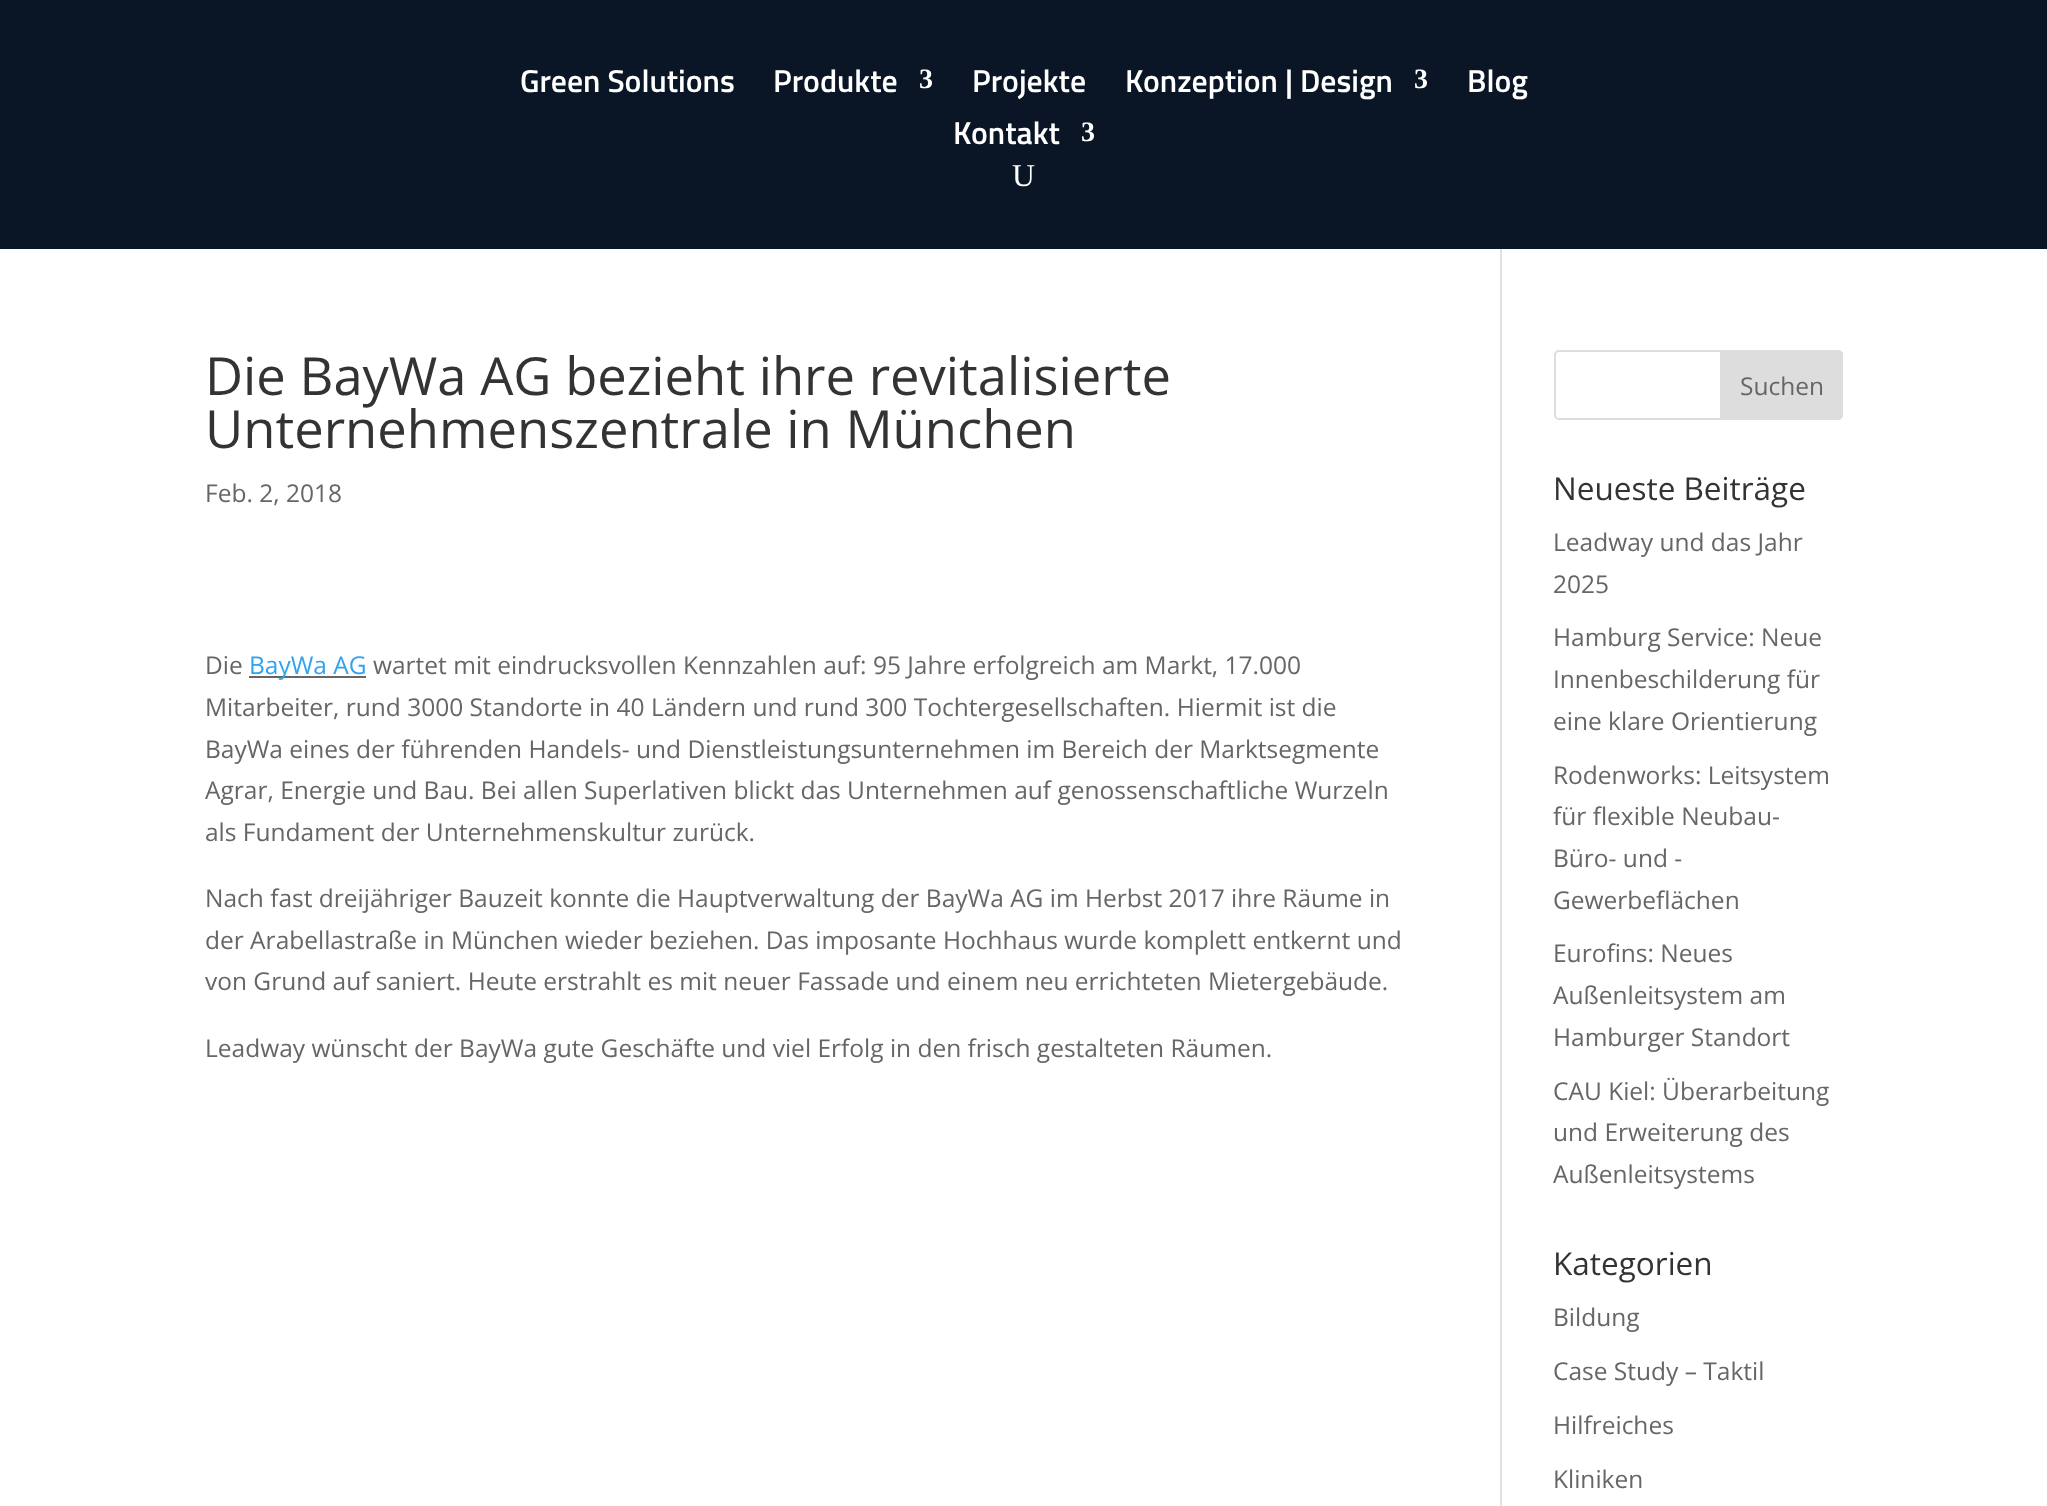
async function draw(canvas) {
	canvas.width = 2047;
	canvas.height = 1506;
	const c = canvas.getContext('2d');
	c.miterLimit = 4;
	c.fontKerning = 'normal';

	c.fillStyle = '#fff';
	c.fillRect(0, 0, 2047, 1506);
	c.fillStyle = '#0a1625';
	c.fillRect(0, 0, 2047, 249);
	c.font = '600 31.75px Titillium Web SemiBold';
	c.fillStyle = '#fff';
	c.fillText('Green Solutions', 520, 92);
	c.fillText('Produkte', 773, 92);
	c.font = 'bold 28px Liberation Serif';
	c.fillText('3', 919, 88);
	c.font = '600 31.75px Titillium Web SemiBold';
	c.fillText('Projekte', 972, 92);
	c.fillText('Konzeption | Design', 1125, 92);
	c.font = 'bold 28px Liberation Serif';
	c.fillText('3', 1414, 88);
	c.font = '600 31.75px Titillium Web SemiBold';
	c.fillText('Blog', 1467, 92);
	c.fillText('Kontakt', 953, 144);
	c.font = 'bold 28px Liberation Serif';
	c.fillText('3', 1081, 141);
	c.font = '31.75px Liberation Serif';
	c.fillText('U', 1012, 186);
	c.fillStyle = '#e2e2e2';
	c.fillRect(1500, 249, 2, 1257);
	c.font = '52.5px Open Sans';
	c.fillStyle = '#333';
	c.fillText('Die BayWa AG bezieht ihre revitalisierte', 205, 395);
	c.fillText('Unternehmenszentrale in München', 205, 448);
	c.font = '24.5px Open Sans';
	c.fillStyle = '#666';
	c.fillText('Feb. 2, 2018', 205, 502);
	c.fillText('Die', 205, 674);
	c.fillRect(249, 676, 117, 2);
	c.fillStyle = '#2ea3f2';
	c.fillText('BayWa AG', 249, 674);
	c.fillStyle = '#666';
	for (const [text, x, y] of [
		['wartet mit eindrucksvollen Kennzahlen auf: 95 Jahre erfolgreich am Markt, 17.000', 373, 674],
		['Mitarbeiter, rund 3000 Standorte in 40 Ländern und rund 300 Tochtergesellschaften. Hiermit ist die', 205, 716],
		['BayWa eines der führenden Handels- und Dienstleistungsunternehmen im Bereich der Marktsegmente', 205, 758],
		['Agrar, Energie und Bau. Bei allen Superlativen blickt das Unternehmen auf genossenschaftliche Wurzeln', 205, 799],
		['als Fundament der Unternehmenskultur zurück.', 205, 841],
		['Nach fast dreijähriger Bauzeit konnte die Hauptverwaltung der BayWa AG im Herbst 2017 ihre Räume in', 205, 907],
		['der Arabellastraße in München wieder beziehen. Das imposante Hochhaus wurde komplett entkernt und', 205, 949],
		['von Grund auf saniert. Heute erstrahlt es mit neuer Fassade und einem neu errichteten Mietergebäude.', 205, 990],
		['Leadway wünscht der BayWa gute Geschäfte und viel Erfolg in den frisch gestalteten Räumen.', 205, 1057],
	]) {
		c.fillText(text, x, y);
	}
	c.beginPath();
	c.roundRect(1555, 351, 287, 68, 4);
	c.strokeStyle = '#ddd';
	c.lineWidth = 2;
	c.stroke();
	c.fillStyle = '#ddd';
	c.beginPath();
	c.roundRect(1721, 351, 121, 68, [0, 4, 4, 0]);
	c.fill();
	c.stroke();
	c.fillStyle = '#666';
	c.fillText('Suchen', 1740, 395);
	c.font = '31.5px Open Sans';
	c.fillStyle = '#333';
	c.fillText('Neueste Beiträge', 1553, 500);
	c.font = '24.5px Open Sans';
	c.fillStyle = '#666';
	for (const [text, x, y] of [
		['Leadway und das Jahr', 1553, 551],
		['2025', 1553, 593],
		['Hamburg Service: Neue', 1553, 646],
		['Innenbeschilderung für', 1553, 688],
		['eine klare Orientierung', 1553, 730],
		['Rodenworks: Leitsystem', 1553, 784],
		['für flexible Neubau-', 1553, 825],
		['Büro- und -', 1553, 867],
		['Gewerbeflächen', 1553, 909],
		['Eurofins: Neues', 1553, 962],
		['Außenleitsystem am', 1553, 1004],
		['Hamburger Standort', 1553, 1046],
		['CAU Kiel: Überarbeitung', 1553, 1100],
		['und Erweiterung des', 1553, 1141],
		['Außenleitsystems', 1553, 1183],
	]) {
		c.fillText(text, x, y);
	}
	c.font = '31.5px Open Sans';
	c.fillStyle = '#333';
	c.fillText('Kategorien', 1553, 1275);
	c.font = '24.5px Open Sans';
	c.fillStyle = '#666';
	for (const [text, x, y] of [
		['Bildung', 1553, 1326],
		['Case Study – Taktil', 1553, 1380],
		['Hilfreiches', 1553, 1434],
		['Kliniken', 1553, 1488],
	]) {
		c.fillText(text, x, y);
	}
}

draw(document.querySelector('canvas'));
